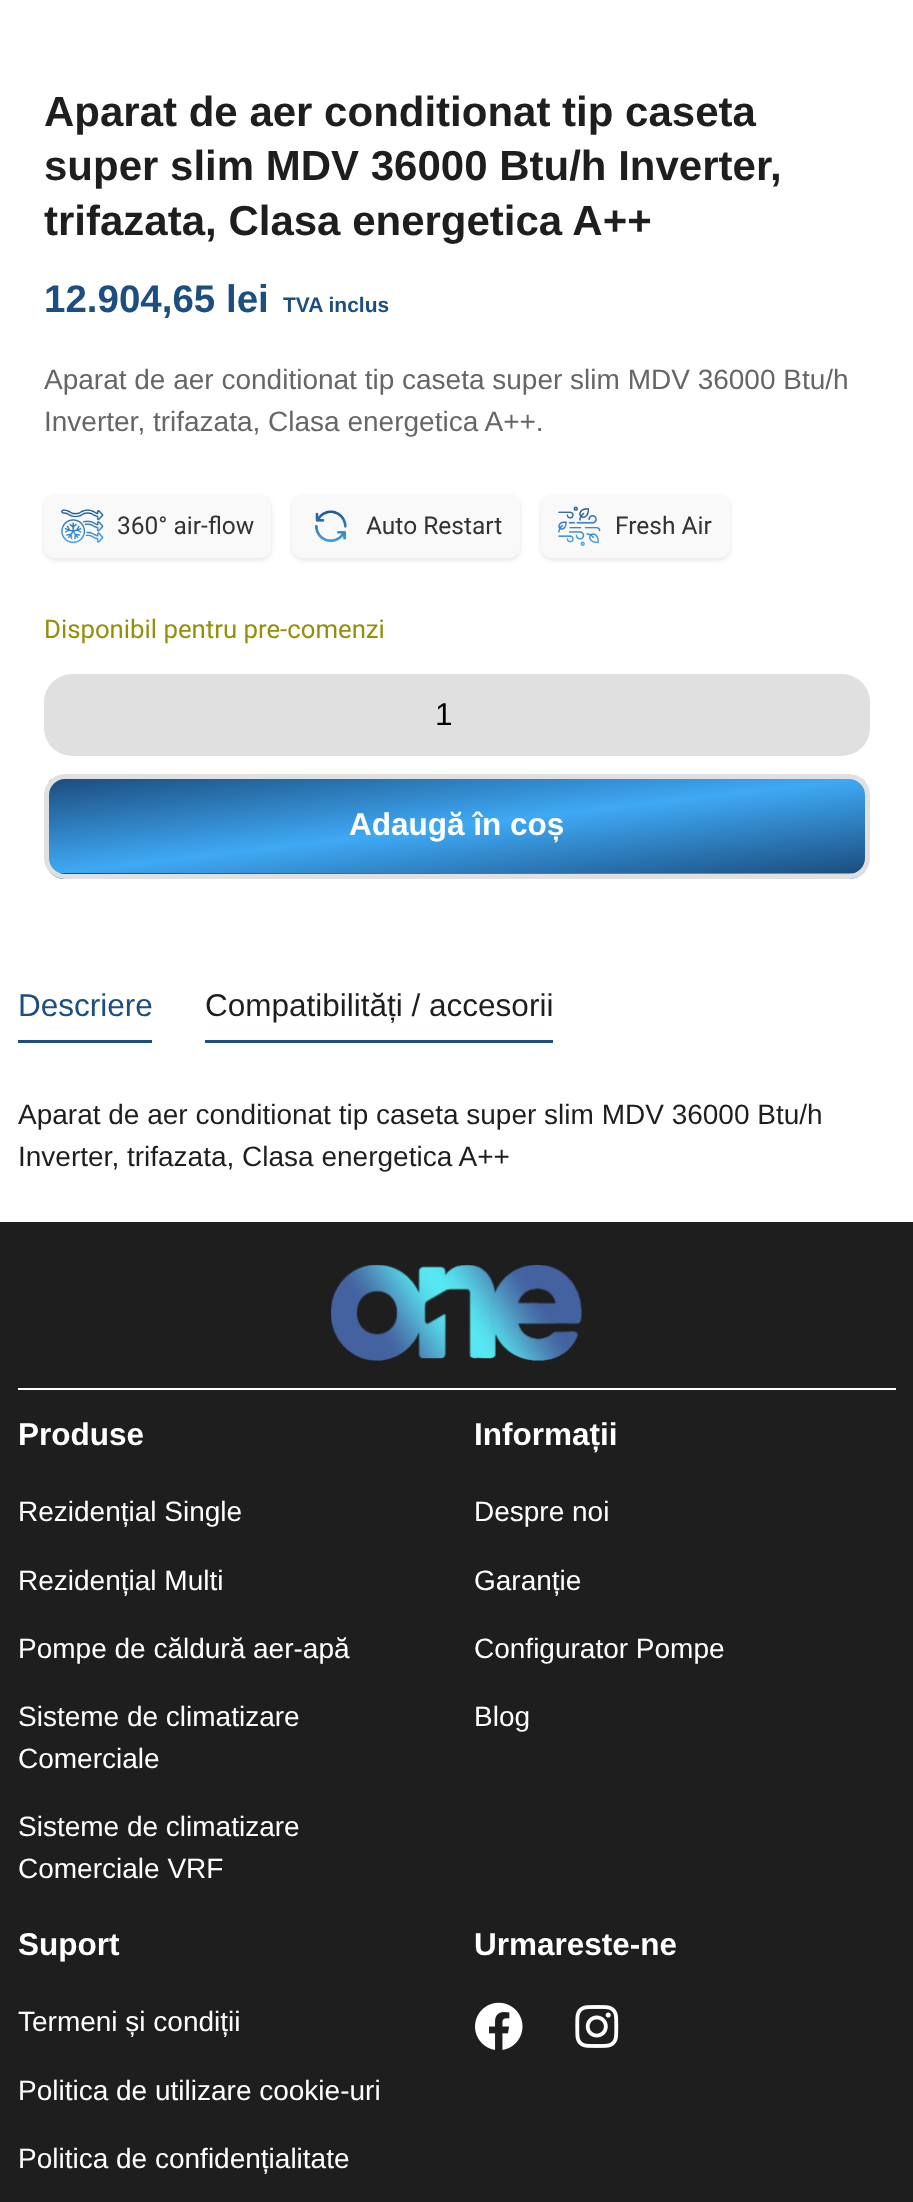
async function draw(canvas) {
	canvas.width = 913;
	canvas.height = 2202;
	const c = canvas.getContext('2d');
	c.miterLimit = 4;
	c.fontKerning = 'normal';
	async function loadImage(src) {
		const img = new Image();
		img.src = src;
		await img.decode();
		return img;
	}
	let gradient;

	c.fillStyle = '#fff';
	c.fillRect(0, 0, 913, 2202);
	c.font = 'bold 42px Liberation Sans';
	c.fillStyle = '#1e1e1e';
	for (const [text, x, y] of [
		['Aparat de aer conditionat tip caseta', 44, 126],
		['super slim MDV 36000 Btu/h Inverter,', 44, 180],
		['trifazata, Clasa energetica A++', 44, 235],
	]) {
		c.fillText(text, x, y);
	}
	c.font = 'bold 38.5px Liberation Sans';
	c.fillStyle = '#1c4e80';
	c.fillText('12.904,65 lei', 44, 312);
	c.font = 'bold 21px Liberation Sans';
	c.fillText('TVA inclus', 283, 312);
	c.font = '28px Liberation Sans';
	c.fillStyle = '#666';
	c.fillText('Aparat de aer conditionat tip caseta super slim MDV 36000 Btu/h', 44, 389);
	c.fillText('Inverter, trifazata, Clasa energetica A++.', 44, 431);
	c.fillStyle = '#0000001a';
	c.filter = 'blur(2.5px)';
	c.beginPath();
	c.roundRect(44, 497, 227, 63, 11);
	c.fill();
	c.filter = 'none';
	c.fillStyle = '#f9f9f9';
	c.beginPath();
	c.roundRect(44, 495, 227, 63, 11);
	c.fill();
	c.drawImage(await loadImage('img1.png'), 61, 509, 43, 35);
	c.font = '24.5px Roboto';
	c.fillStyle = '#333';
	c.fillText('360° air-flow', 117, 534);
	c.fillStyle = '#0000001a';
	c.filter = 'blur(2.5px)';
	c.beginPath();
	c.roundRect(292, 497, 228, 63, 11);
	c.fill();
	c.filter = 'none';
	c.fillStyle = '#f9f9f9';
	c.beginPath();
	c.roundRect(292, 495, 228, 63, 11);
	c.fill();
	c.drawImage(await loadImage('img2.png'), 315, 510, 32, 32);
	c.fillStyle = '#333';
	c.fillText('Auto Restart', 366, 534);
	c.fillStyle = '#0000001a';
	c.filter = 'blur(2.5px)';
	c.beginPath();
	c.roundRect(541, 497, 189, 63, 11);
	c.fill();
	c.filter = 'none';
	c.fillStyle = '#f9f9f9';
	c.beginPath();
	c.roundRect(541, 495, 189, 63, 11);
	c.fill();
	c.drawImage(await loadImage('img3.png'), 558, 506, 43, 40);
	c.fillStyle = '#333';
	c.fillText('Fresh Air', 615, 534);
	c.font = '25.75px Roboto';
	c.fillStyle = '#958e09';
	c.fillText('Disponibil pentru pre-comenzi', 44, 638);
	c.fillStyle = '#e0e0e0';
	c.beginPath();
	c.roundRect(44, 674, 826, 82, 28);
	c.fill();
	c.font = '31.5px Liberation Sans';
	c.fillStyle = '#000';
	c.fillText('1', 435, 725);
	c.save();
	c.beginPath();
	c.roundRect(44, 774, 826, 105, 21);
	c.clip();
	gradient = c.createLinearGradient(446, 733, 468, 919);
	gradient.addColorStop(0, '#1c4e80');
	gradient.addColorStop(0.5, '#3fa9f5');
	gradient.addColorStop(1, '#1c4e80');
	c.fillStyle = gradient;
	c.fillRect(49, 779, 816, 94);
	gradient = c.createLinearGradient(446, 827, 468, 1014);
	gradient.addColorStop(0, '#1c4e80');
	gradient.addColorStop(0.5, '#3fa9f5');
	gradient.addColorStop(1, '#1c4e80');
	c.fillStyle = gradient;
	c.fillRect(49, 873, 816, 6);
	c.restore();
	c.beginPath();
	c.roundRect(46.5, 776.5, 821, 100, 18.5);
	c.strokeStyle = '#e0e0e0';
	c.lineWidth = 5;
	c.stroke();
	c.font = 'bold 31.5px Liberation Sans';
	c.fillStyle = '#fff';
	c.fillText('Adaugă în coș', 349, 835);
	c.fillStyle = '#1c4e80';
	c.fillRect(18, 1040, 134, 3);
	c.font = '31.5px Liberation Sans';
	c.fillText('Descriere', 18, 1016);
	c.fillRect(205, 1040, 348, 3);
	c.fillStyle = '#1e1e1e';
	c.fillText('Compatibilități / accesorii', 205, 1016);
	c.font = '28px Liberation Sans';
	c.fillText('Aparat de aer conditionat tip caseta super slim MDV 36000 Btu/h', 18, 1124);
	c.fillText('Inverter, trifazata, Clasa energetica A++', 18, 1166);
	c.fillRect(0, 1222, 913, 980);
	c.drawImage(await loadImage('img4.png'), 331, 1265, 251, 96);
	c.fillStyle = '#fff';
	c.fillRect(18, 1388, 878, 2);
	c.font = 'bold 31.5px Liberation Sans';
	c.fillText('Produse', 18, 1445);
	c.font = '28px Liberation Sans';
	for (const [text, x, y] of [
		['Rezidențial Single', 18, 1521],
		['Rezidențial Multi', 18, 1590],
		['Pompe de căldură aer-apă', 18, 1658],
		['Sisteme de climatizare', 18, 1726],
		['Comerciale', 18, 1768],
		['Sisteme de climatizare', 18, 1836],
		['Comerciale VRF', 18, 1878],
	]) {
		c.fillText(text, x, y);
	}
	c.font = 'bold 31.5px Liberation Sans';
	c.fillText('Informații', 474, 1445);
	c.font = '28px Liberation Sans';
	for (const [text, x, y] of [
		['Despre noi', 474, 1521],
		['Garanție', 474, 1590],
		['Configurator Pompe', 474, 1658],
		['Blog', 474, 1726],
	]) {
		c.fillText(text, x, y);
	}
	c.font = 'bold 31.5px Liberation Sans';
	c.fillText('Suport', 18, 1955);
	c.font = '28px Liberation Sans';
	for (const [text, x, y] of [
		['Termeni și condiții', 18, 2031],
		['Politica de utilizare cookie-uri', 18, 2100],
		['Politica de confidențialitate', 18, 2168],
	]) {
		c.fillText(text, x, y);
	}
	c.font = 'bold 31.5px Liberation Sans';
	c.fillText('Urmareste-ne', 474, 1955);
	c.drawImage(await loadImage('img5.png'), 475, 2002, 48, 48);
	c.drawImage(await loadImage('img6.png'), 575, 2005, 44, 43);
}

draw(document.querySelector('canvas'));
